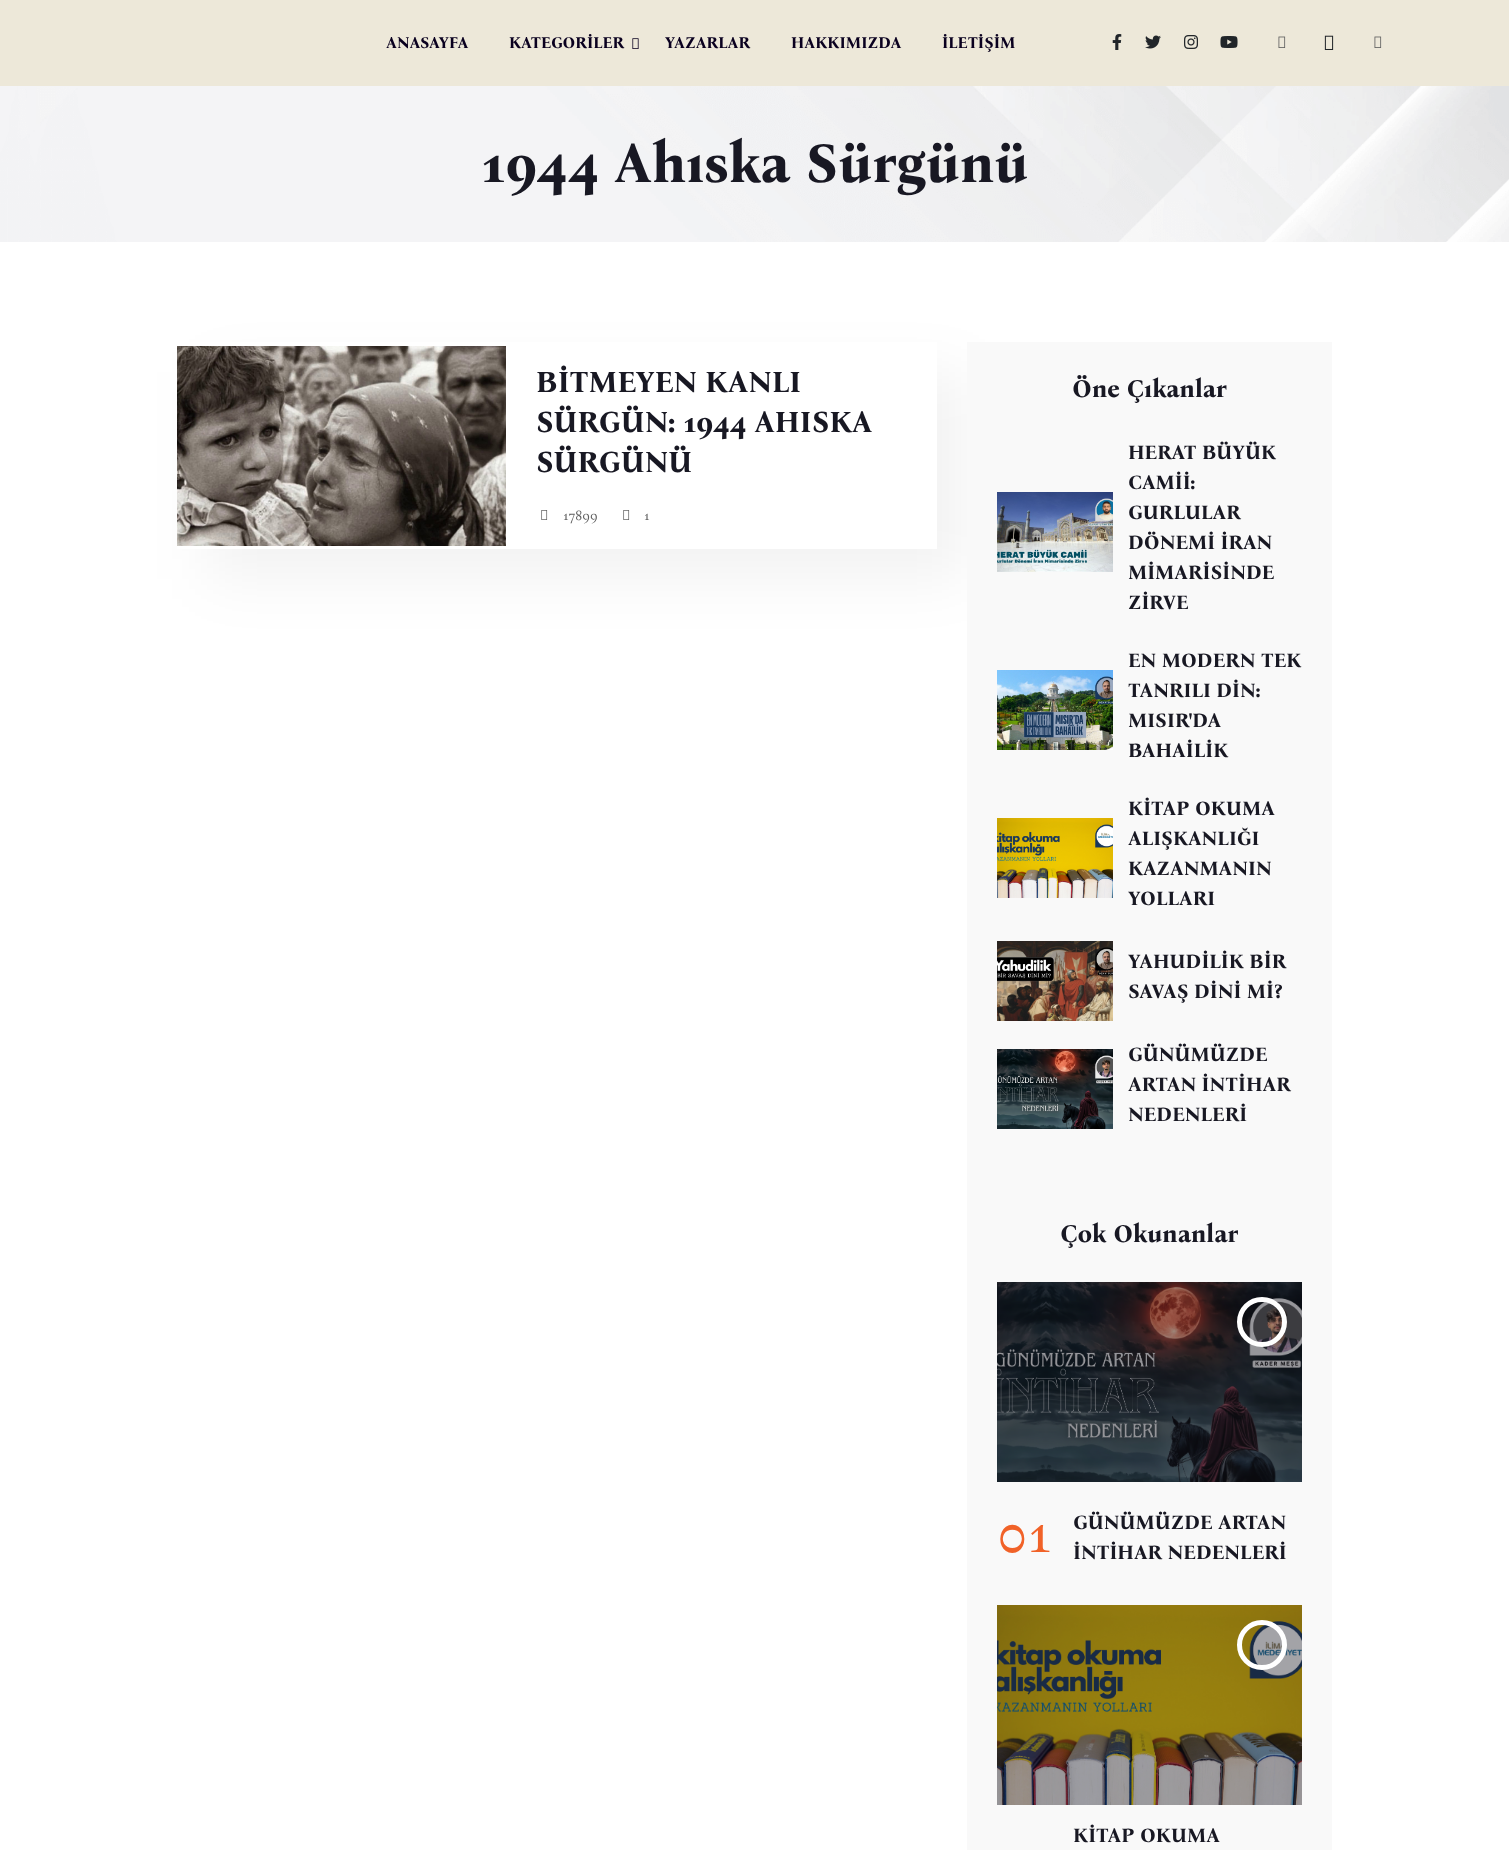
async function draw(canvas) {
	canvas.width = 1509;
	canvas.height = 1850;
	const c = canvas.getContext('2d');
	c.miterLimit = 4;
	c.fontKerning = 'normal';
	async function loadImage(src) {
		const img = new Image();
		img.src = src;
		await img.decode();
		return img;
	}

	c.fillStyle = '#fff';
	c.fillRect(0, 0, 1509, 1850);
	c.fillStyle = '#ede8d9';
	c.fillRect(0, 0, 1509, 86);
	c.font = 'bold 16px Bona Nova';
	c.fillStyle = '#0a001f';
	c.fillText('ANASAYFA', 386, 48);
	c.fillText('KATEGORİLER', 509, 48);
	c.drawImage(await loadImage('img1.png'), 632, 38, 7, 11);
	for (const [text, x, y] of [
		['YAZARLAR', 665, 48],
		['HAKKIMIZDA', 791, 48],
		['İLETİŞİM', 942, 48],
	]) {
		c.fillText(text, x, y);
	}
	c.drawImage(await loadImage('img2.png'), 1112, 34, 10, 16);
	c.drawImage(await loadImage('img3.png'), 1145, 35, 16, 14);
	c.drawImage(await loadImage('img4.png'), 1184, 35, 14, 14);
	c.drawImage(await loadImage('img5.png'), 1220, 36, 18, 12);
	c.drawImage(await loadImage('img6.png'), 1278, 36, 8, 12);
	c.drawImage(await loadImage('img7.png'), 1324, 35, 10, 15);
	c.drawImage(await loadImage('img6.png'), 1374, 36, 8, 12);
	c.drawImage(await loadImage('img8.png'), 0, 86, 1509, 156);
	c.font = 'bold 56px Bona Nova';
	c.fillStyle = '#181823';
	c.fillText('1944 Ahıska Sürgünü', 481, 182);
	c.save();
	c.beginPath();
	c.moveTo(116, 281);
	c.lineTo(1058, 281);
	c.lineTo(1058, 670);
	c.lineTo(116, 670);
	c.closePath();
	c.moveTo(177, 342);
	c.lineTo(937, 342);
	c.lineTo(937, 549);
	c.lineTo(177, 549);
	c.closePath();
	c.clip('evenodd');
	c.fillStyle = '#0000010d';
	c.filter = 'blur(30px)';
	c.beginPath();
	c.rect(207, 372, 760, 207);
	c.fill();
	c.filter = 'none';
	c.restore();
	c.drawImage(await loadImage('img9.png'), 177, 346, 329, 200);
	c.font = 'bold 30px Bona Nova';
	for (const [text, x, y] of [
		['BİTMEYEN KANLI', 536, 392],
		['SÜRGÜN: 1944 AHISKA', 536, 432],
		['SÜRGÜNÜ', 536, 472],
	]) {
		c.fillText(text, x, y);
	}
	c.drawImage(await loadImage('img10.png'), 541, 510, 7, 10);
	c.font = '14px Bona Nova';
	c.fillStyle = '#5e5e5e';
	c.fillText('17899', 563, 520);
	c.drawImage(await loadImage('img10.png'), 623, 510, 7, 10);
	c.fillText('1', 644, 520);
	c.fillStyle = '#f9f9f9';
	c.fillRect(967, 342, 365, 1508);
	c.font = 'bold 25px Bona Nova';
	c.fillStyle = '#181823';
	c.fillText('Öne Çıkanlar', 1072, 397);
	c.drawImage(await loadImage('img11.png'), 997, 492, 116, 80);
	c.font = 'bold 20px Bona Nova';
	for (const [text, x, y] of [
		['HERAT BÜYÜK', 1128, 459],
		['CAMİİ:', 1128, 489],
		['GURLULAR', 1128, 519],
		['DÖNEMİ İRAN', 1128, 549],
		['MİMARİSİNDE', 1128, 579],
		['ZİRVE', 1128, 609],
	]) {
		c.fillText(text, x, y);
	}
	c.drawImage(await loadImage('img12.png'), 997, 670, 116, 80);
	for (const [text, x, y] of [
		['EN MODERN TEK', 1128, 667],
		['TANRILI DİN:', 1128, 697],
		['MISIR\'DA', 1128, 727],
		['BAHAİLİK', 1128, 757],
	]) {
		c.fillText(text, x, y);
	}
	c.drawImage(await loadImage('img13.png'), 997, 818, 116, 80);
	for (const [text, x, y] of [
		['KİTAP OKUMA', 1128, 815],
		['ALIŞKANLIĞI', 1128, 845],
		['KAZANMANIN', 1128, 875],
		['YOLLARI', 1128, 905],
	]) {
		c.fillText(text, x, y);
	}
	c.drawImage(await loadImage('img14.png'), 997, 941, 116, 80);
	c.fillText('YAHUDİLİK BİR', 1128, 968);
	c.fillText('SAVAŞ DİNİ Mİ?', 1128, 998);
	c.drawImage(await loadImage('img15.png'), 997, 1049, 116, 80);
	for (const [text, x, y] of [
		['GÜNÜMÜZDE', 1128, 1061],
		['ARTAN İNTİHAR', 1128, 1091],
		['NEDENLERİ', 1128, 1121],
	]) {
		c.fillText(text, x, y);
	}
	c.font = 'bold 25px Bona Nova';
	c.fillText('Çok Okunanlar', 1060, 1242);
	c.drawImage(await loadImage('img16.png'), 997, 1282, 305, 200);
	c.beginPath();
	c.arc(1262, 1322, 22.5, 0, 2 * Math.PI);
	c.strokeStyle = '#fff';
	c.lineWidth = 5;
	c.stroke();
	c.font = '60px Bona Nova';
	c.fillStyle = '#f16228';
	c.fillText('01', 997, 1552);
	c.font = 'bold 20px Bona Nova';
	c.fillStyle = '#181823';
	c.fillText('GÜNÜMÜZDE ARTAN', 1073, 1529);
	c.fillText('İNTİHAR NEDENLERİ', 1073, 1559);
	c.drawImage(await loadImage('img17.png'), 997, 1605, 305, 200);
	c.beginPath();
	c.arc(1262, 1645, 22.5, 0, 2 * Math.PI);
	c.stroke();
	c.fillText('KİTAP OKUMA', 1073, 1842);
}

draw(document.querySelector('canvas'));
